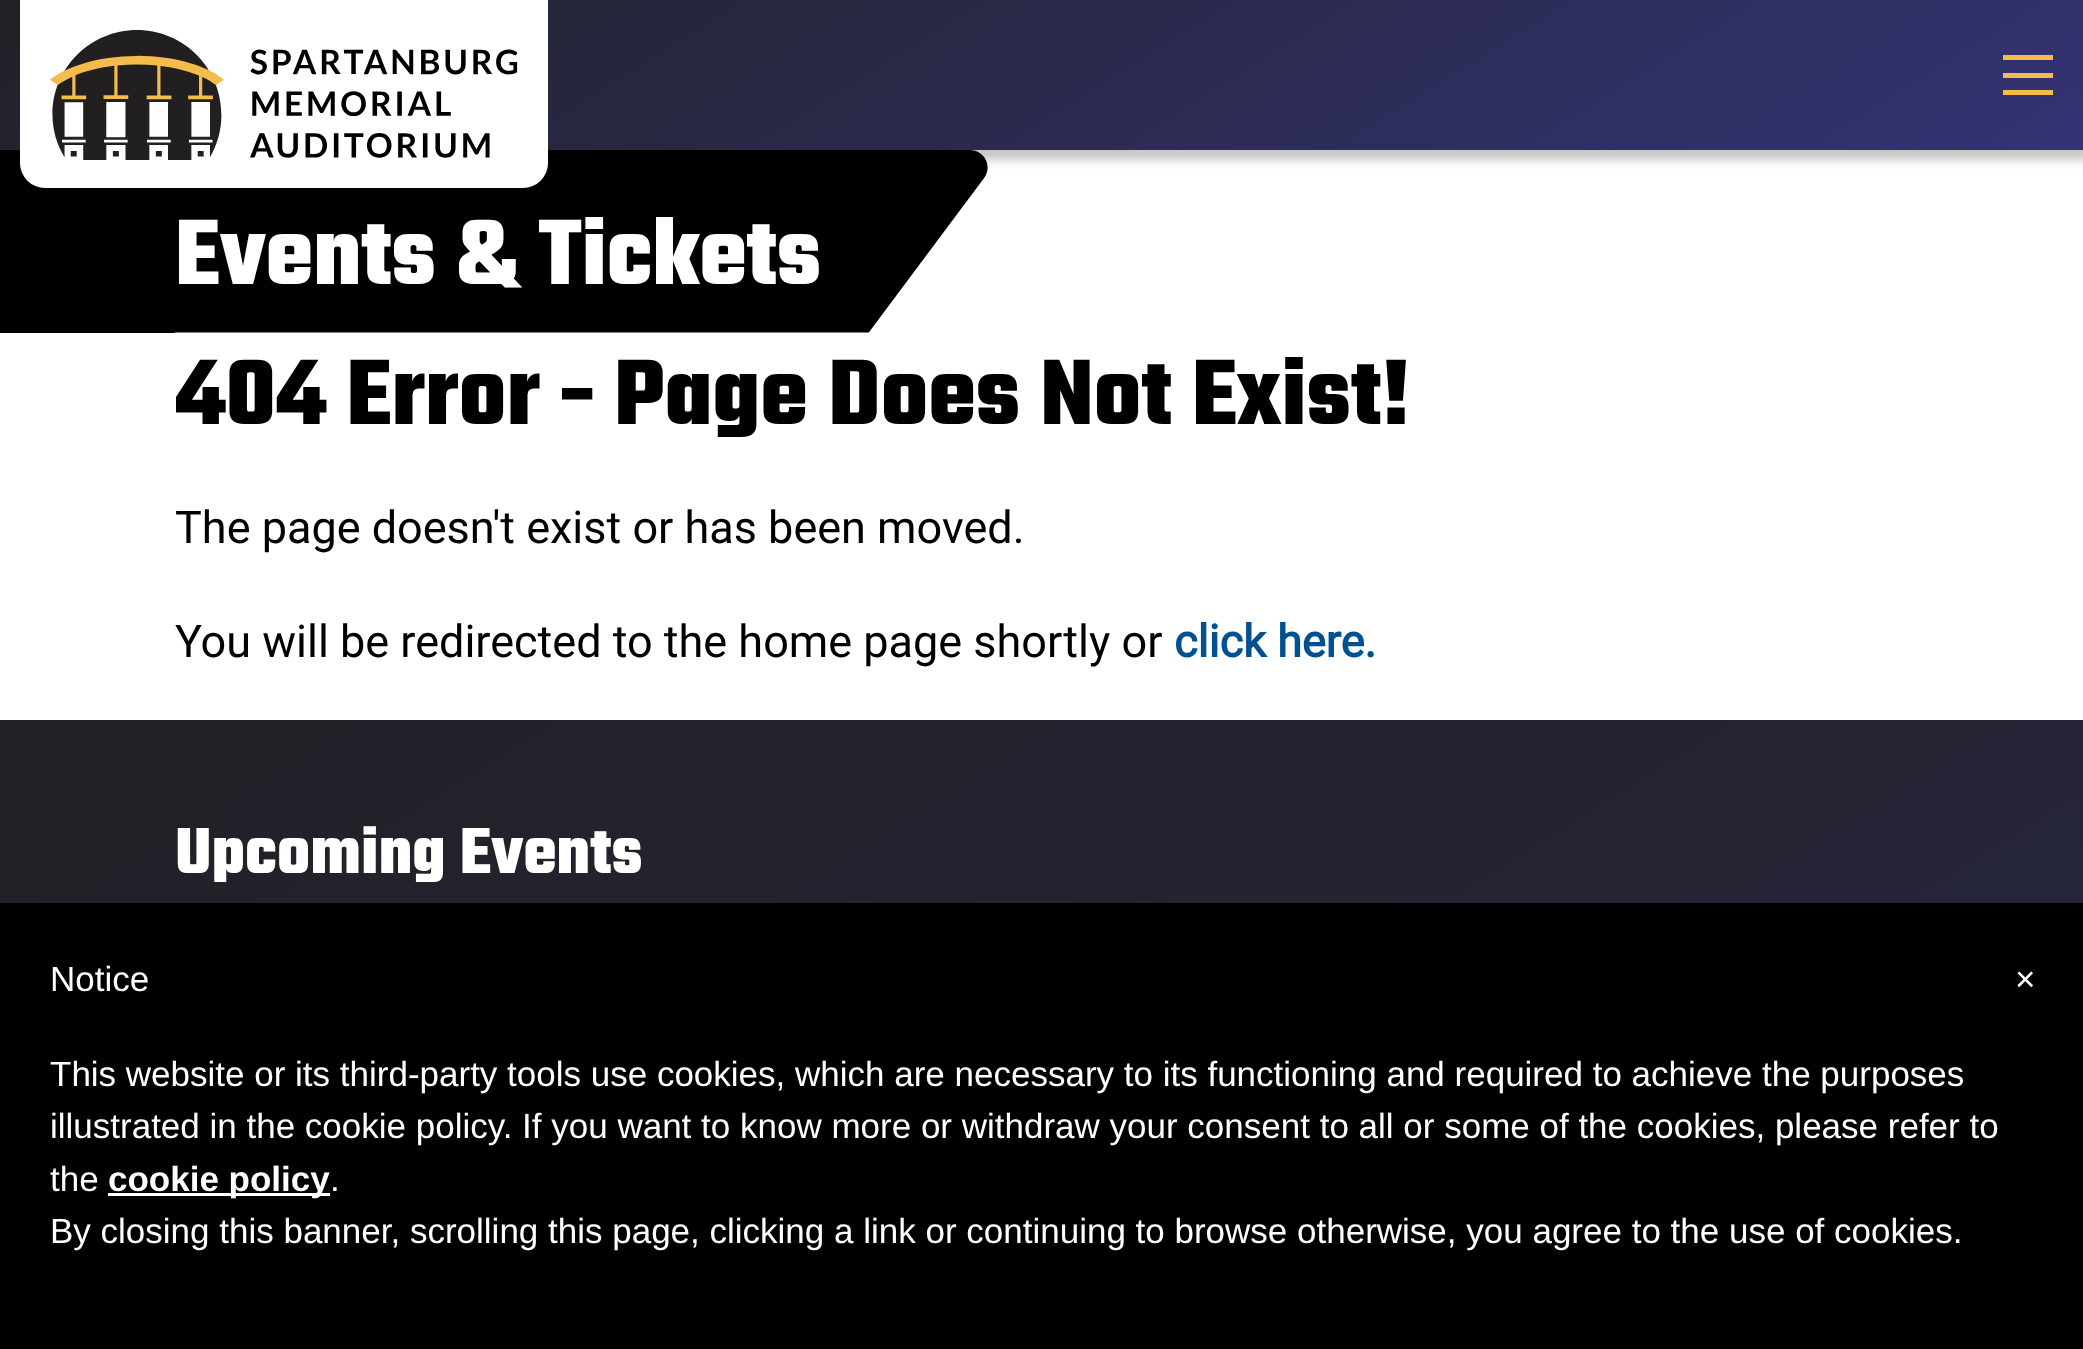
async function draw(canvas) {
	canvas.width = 2083;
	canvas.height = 1349;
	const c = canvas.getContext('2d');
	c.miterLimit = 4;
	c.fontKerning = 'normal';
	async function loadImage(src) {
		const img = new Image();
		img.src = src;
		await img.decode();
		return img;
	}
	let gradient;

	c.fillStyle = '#fff';
	c.fillRect(0, 0, 2083, 1349);
	c.fillStyle = '#000';
	c.fillRect(0, 150, 175, 183);
	c.drawImage(await loadImage('img2.png'), 175, 150, 813, 183);
	c.fillStyle = '#00000038';
	c.filter = 'blur(5px)';
	c.beginPath();
	c.rect(-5, 0, 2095, 160);
	c.fill();
	c.filter = 'none';
	gradient = c.createLinearGradient(716, -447, 1369, 597);
	gradient.addColorStop(0, '#202125');
	gradient.addColorStop(1, '#343374');
	c.fillStyle = gradient;
	c.fillRect(0, 0, 2083, 150);
	c.fillStyle = '#fff';
	c.beginPath();
	c.roundRect(20, 0, 528, 188, [0, 0, 25, 25]);
	c.fill();
	c.drawImage(await loadImage('img1.png'), 50, 30, 468, 130);
	for (const [x, y, w, h, color] of [
		[2003, 90, 50, 5, '#f3bc4b'],
		[2003, 73, 50, 5, '#f3bc4b'],
		[2003, 55, 50, 5, '#f3bc4b'],
	]) {
		c.fillStyle = color;
		c.fillRect(x, y, w, h);
	}
	c.font = 'bold 100px Teko';
	c.fillStyle = '#fff';
	c.fillText('Events & Tickets', 175, 284);
	c.fillStyle = '#000';
	c.fillText('404 Error - Page Does Not Exist!', 175, 424);
	c.font = '45px Roboto';
	c.fillText('The page doesn\'t exist or has been moved.', 175, 543);
	c.fillText('You will be redirected to the home page shortly or', 175, 657);
	c.font = 'bold 45px Roboto';
	c.fillStyle = '#005192';
	c.fillText('click here.', 1174, 657);
	gradient = c.createLinearGradient(-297, 905, 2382, 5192);
	gradient.addColorStop(0, '#202125');
	gradient.addColorStop(1, '#343374');
	c.fillStyle = gradient;
	c.fillRect(0, 720, 2083, 183);
	c.font = 'bold 70px Teko';
	c.fillStyle = '#fff';
	c.fillText('Upcoming Events', 175, 873);
	c.fillStyle = '#000';
	c.fillRect(0, 903, 2083, 446);
	c.font = '35px Liberation Sans';
	c.fillStyle = '#fff';
	for (const [text, x, y] of [
		['Notice', 50, 991],
		['This website or its third-party tools use cookies, which are necessary to its functioning and required to achieve the purposes', 50, 1086],
		['illustrated in the cookie policy. If you want to know more or withdraw your consent to all or some of the cookies, please refer to', 50, 1138],
		['the', 50, 1191],
	]) {
		c.fillText(text, x, y);
	}
	c.fillRect(108, 1193, 222, 3);
	c.font = 'bold 35px Liberation Sans';
	c.fillText('cookie policy', 108, 1191);
	c.font = '35px Liberation Sans';
	for (const [text, x, y] of [
		['.', 330, 1191],
		['By closing this banner, scrolling this page, clicking a link or continuing to browse otherwise, you agree to the use of cookies.', 50, 1243],
		['×', 2015, 991],
	]) {
		c.fillText(text, x, y);
	}
}

draw(document.querySelector('canvas'));
